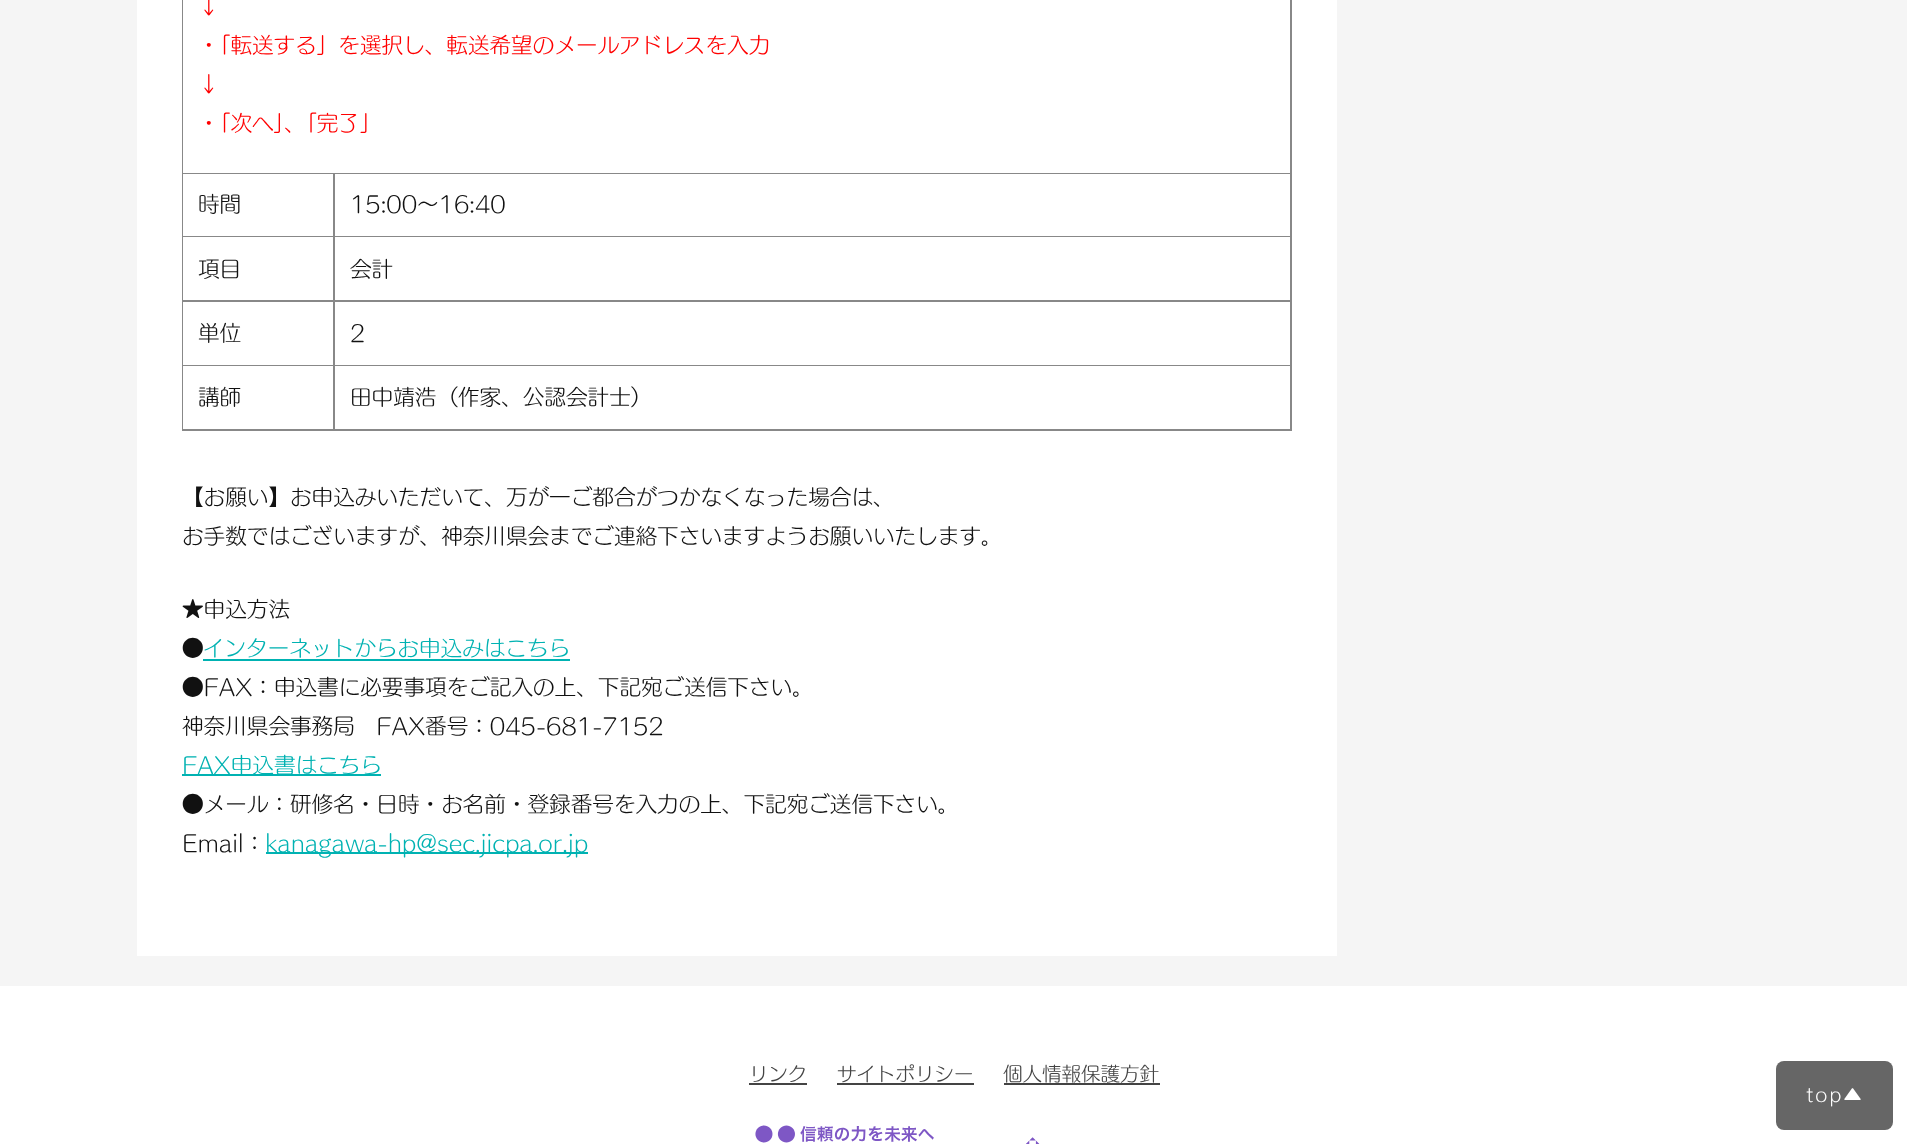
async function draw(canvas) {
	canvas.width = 1907;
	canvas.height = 1144;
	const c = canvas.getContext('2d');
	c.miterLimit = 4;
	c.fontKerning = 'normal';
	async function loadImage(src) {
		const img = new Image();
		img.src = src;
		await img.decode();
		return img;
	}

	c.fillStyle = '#fff';
	c.fillRect(0, 0, 1907, 1144);
	for (const [x, y, w, h, color] of [
		[0, 0, 1907, 986, '#f5f5f5'],
		[137, 0, 1200, 956, '#fff'],
		[182, 0, 1, 431, '#888'],
		[1290, 0, 2, 431, '#888'],
		[183, 173, 1109, 1, '#888'],
	]) {
		c.fillStyle = color;
		c.fillRect(x, y, w, h);
	}
	c.font = '300 21.6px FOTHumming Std';
	c.fillStyle = '#f00';
	for (const [text, x, y] of [
		['↓', 198, 14],
		['・「転送する」を選択し、転送希望のメールアドレスを入力', 198, 53],
		['↓', 198, 92],
		['・「次へ」、「完了」', 198, 131],
	]) {
		c.fillText(text, x, y);
	}
	c.fillStyle = '#888';
	c.fillRect(333, 174, 2, 257);
	c.fillRect(183, 236, 1109, 1);
	c.fillStyle = '#111';
	c.fillText('時間', 198, 212);
	c.fillText('15:00～16:40', 350, 212);
	c.fillStyle = '#888';
	c.fillRect(183, 300, 1109, 2);
	c.fillStyle = '#111';
	c.fillText('項目', 198, 277);
	c.fillText('会計', 350, 277);
	c.fillStyle = '#888';
	c.fillRect(183, 365, 1109, 1);
	c.fillStyle = '#111';
	c.fillText('単位', 198, 341);
	c.fillText('2', 350, 341);
	c.fillStyle = '#888';
	c.fillRect(183, 429, 1109, 2);
	c.fillStyle = '#111';
	for (const [text, x, y] of [
		['講師', 198, 405],
		['田中靖浩（作家、公認会計士）', 350, 405],
		['【お願い】お申込みいただいて、万が一ご都合がつかなくなった場合は、', 182, 505],
		['お手数ではございますが、神奈川県会までご連絡下さいますようお願いいたします。', 182, 544],
		['★申込方法', 182, 617],
		['●', 182, 656],
	]) {
		c.fillText(text, x, y);
	}
	c.fillStyle = '#00b2b2';
	c.fillText('インターネットからお申込みはこちら', 203, 656);
	c.fillRect(203, 659, 367, 2);
	c.fillStyle = '#111';
	c.fillText('●FAX：申込書に必要事項をご記入の上、下記宛ご送信下さい。', 182, 695);
	c.fillText('神奈川県会事務局　FAX番号：045-681-7152', 182, 734);
	c.fillStyle = '#00b2b2';
	c.fillRect(182, 774, 199, 2);
	c.fillText('FAX申込書はこちら', 182, 773);
	c.fillStyle = '#111';
	c.fillText('●メール：研修名・日時・お名前・登録番号を入力の上、下記宛ご送信下さい。', 182, 812);
	c.fillText('Email：', 182, 851);
	c.fillStyle = '#00b2b2';
	c.fillRect(266, 852, 322, 2);
	c.fillText('kanagawa-hp@sec.jicpa.or.jp', 265, 851);
	c.font = '300 19.5px FOTHumming Std';
	c.fillStyle = '#444';
	c.fillText('リンク', 749, 1081);
	c.fillRect(749, 1083, 58, 2);
	c.fillText('サイトポリシー', 837, 1081);
	c.fillRect(837, 1083, 137, 2);
	c.fillText('個人情報保護方針', 1003, 1081);
	c.fillRect(1004, 1083, 156, 2);
	c.drawImage(await loadImage('img1.png'), 755, 1125, 285, 19);
	c.fillStyle = '#666';
	c.beginPath();
	c.roundRect(1776, 1061, 117, 69, 8);
	c.fill();
	c.letterSpacing = '2px';
	c.font = '300 18px FOTHumming Std';
	c.fillStyle = '#fff';
	c.fillText('top▲', 1806, 1101);
}

draw(document.querySelector('canvas'));
